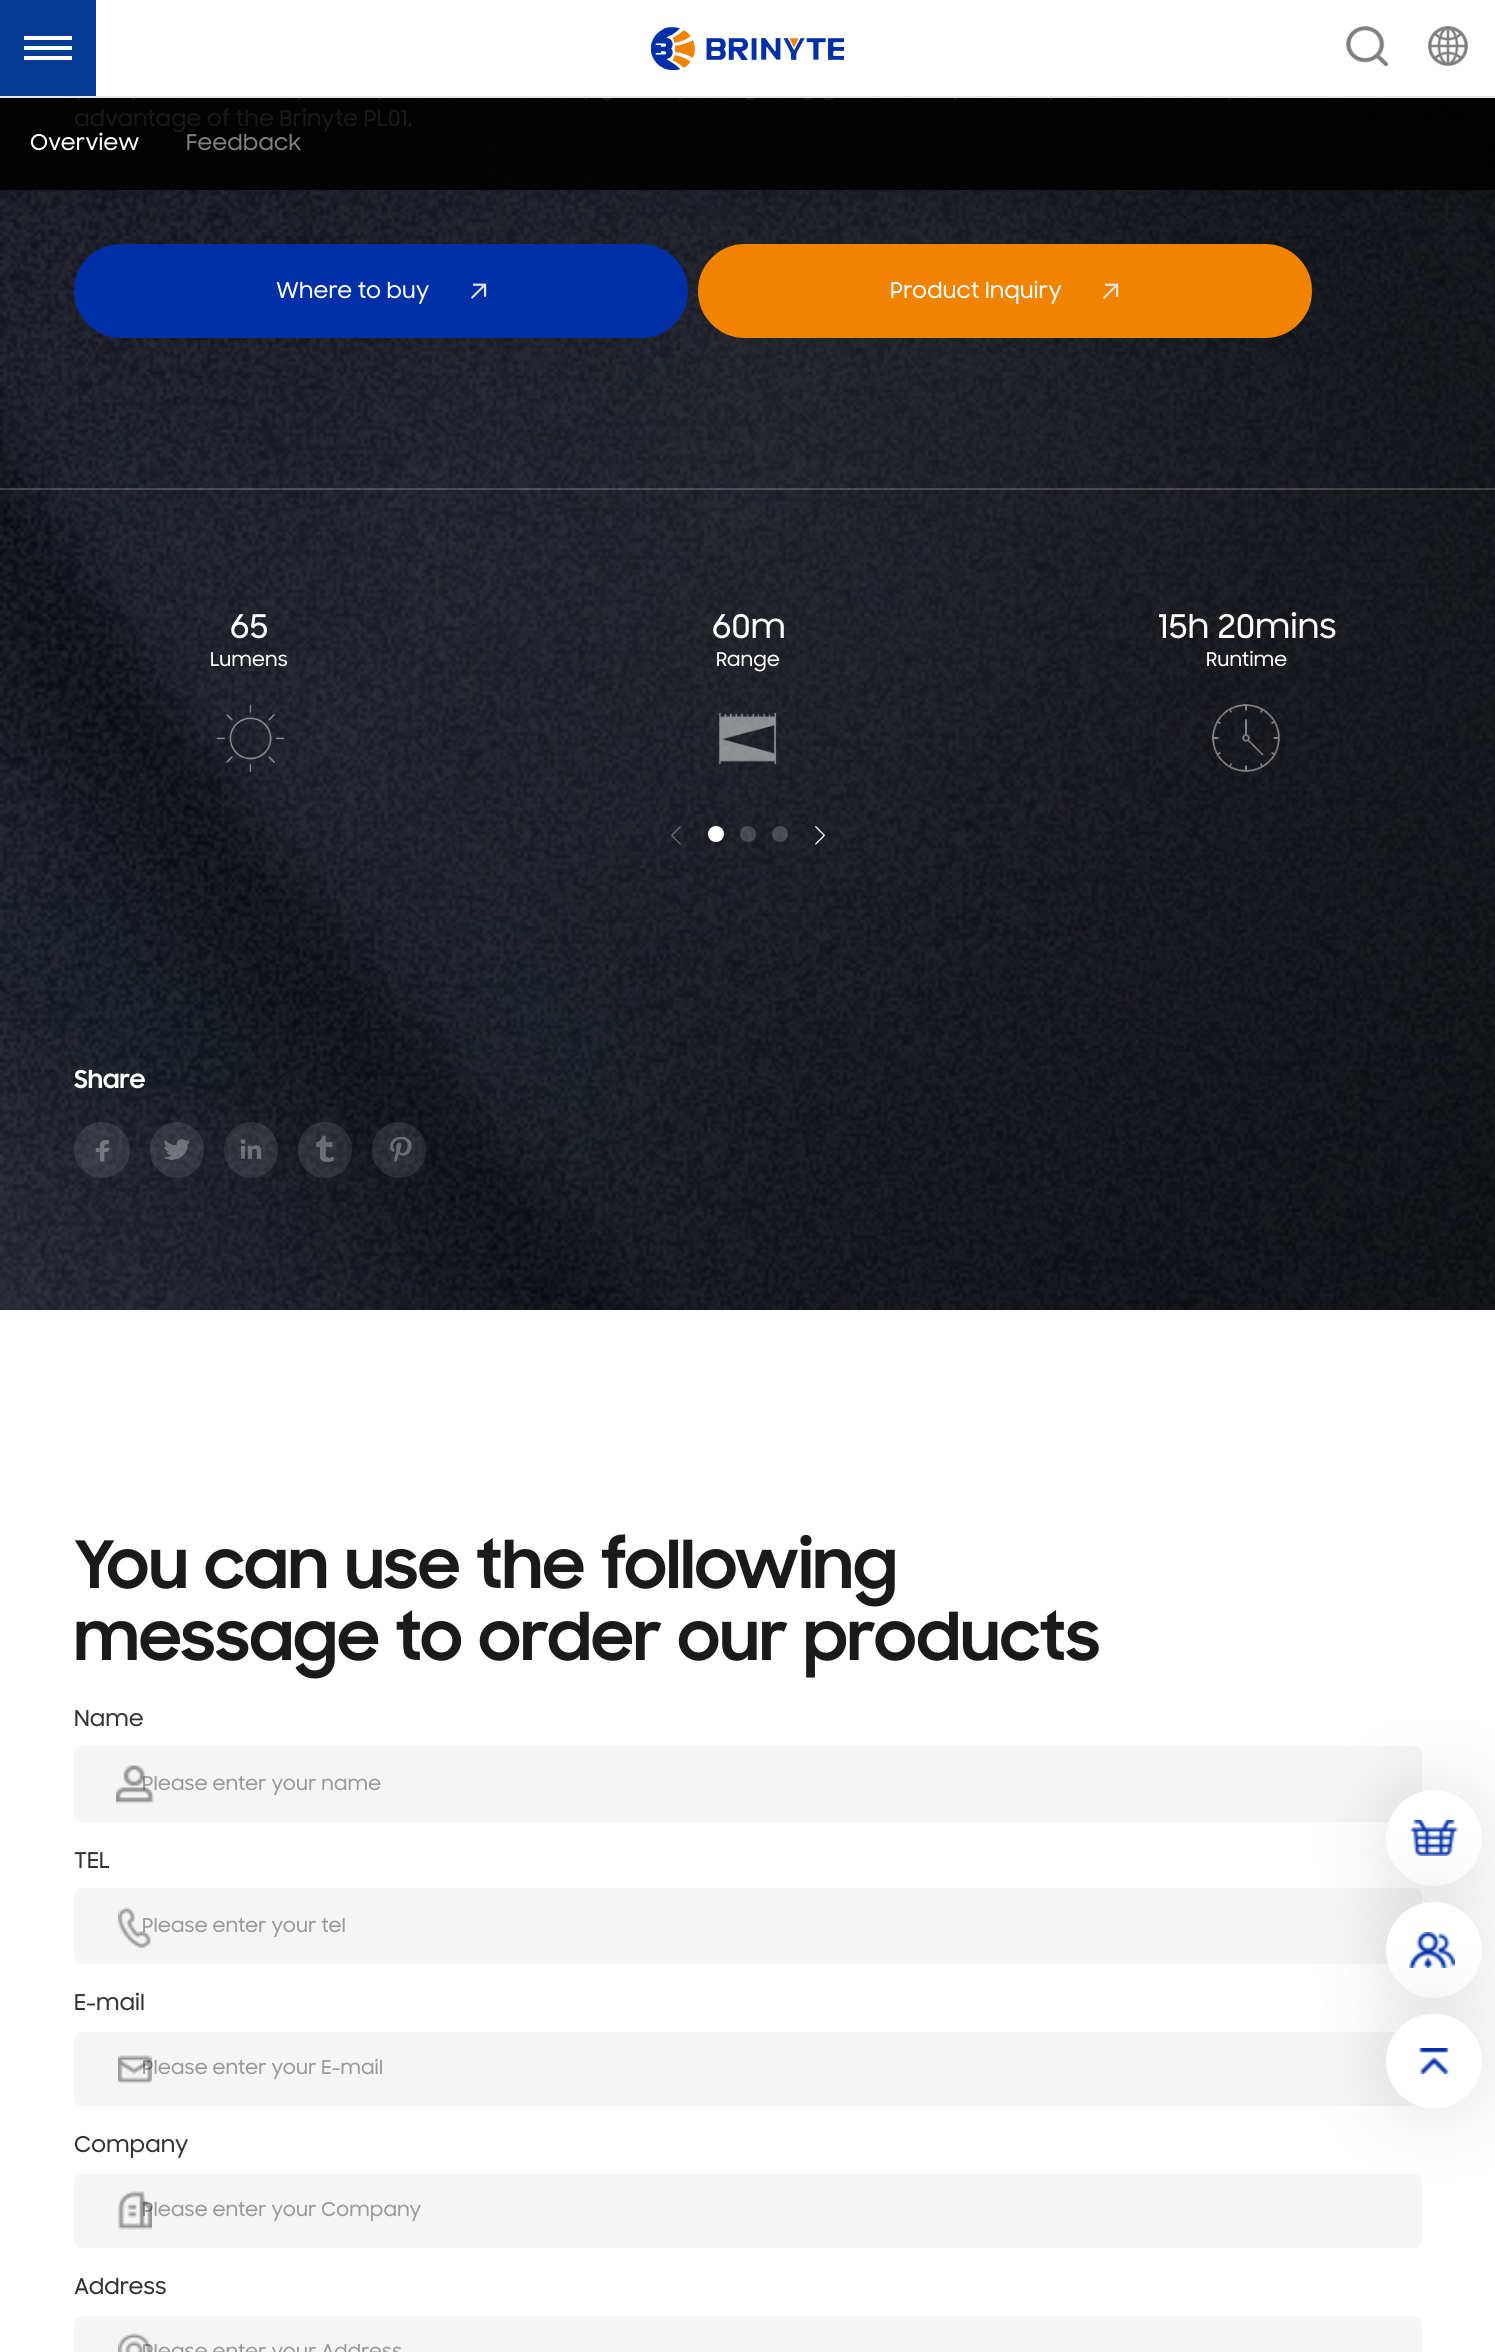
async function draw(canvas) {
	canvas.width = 1495;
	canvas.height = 2352;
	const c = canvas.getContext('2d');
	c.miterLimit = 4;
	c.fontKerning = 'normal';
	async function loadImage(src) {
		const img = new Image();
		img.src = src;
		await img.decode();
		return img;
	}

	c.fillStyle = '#fff';
	c.fillRect(0, 0, 1495, 2352);
	for (const [x, y, w, h, color] of [
		[0, 96, 1495, 2, '#e6e6e6'],
		[0, 0, 96, 96, '#053a95'],
		[24, 46, 48, 4, '#fff'],
		[24, 36, 48, 4, '#fff'],
		[24, 56, 48, 4, '#fff'],
	]) {
		c.fillStyle = color;
		c.fillRect(x, y, w, h);
	}
	c.drawImage(await loadImage('img1.png'), 651, 27, 193, 43);
	c.drawImage(await loadImage('img2.png'), 1346, 26, 42, 40);
	c.drawImage(await loadImage('img3.png'), 1428, 26, 40, 40);
	c.drawImage(await loadImage('img4.png'), 0, 98, 1495, 1212);
	c.drawImage(await loadImage('img5.png'), 77, 98, 1154, 3);
	c.drawImage(await loadImage('img6.png'), 74, 108, 338, 25);
	c.fillStyle = '#002fa7';
	c.beginPath();
	c.roundRect(76, 246, 610, 90, 45);
	c.fill();
	c.strokeStyle = '#002fa7';
	c.lineWidth = 4;
	c.stroke();
	c.drawImage(await loadImage('img7.png'), 276, 281, 153, 23);
	c.drawImage(await loadImage('img8.png'), 471, 283, 16, 16);
	c.fillStyle = '#f08300';
	c.beginPath();
	c.roundRect(700, 246, 610, 90, 45);
	c.fill();
	c.strokeStyle = '#f08300';
	c.stroke();
	c.drawImage(await loadImage('img9.png'), 891, 280, 171, 24);
	c.drawImage(await loadImage('img10.png'), 1103, 283, 16, 16);
	c.fillStyle = '#ffffff33';
	c.fillRect(0, 488, 1495, 2);
	c.drawImage(await loadImage('img11.png'), 231, 614, 37, 25);
	c.drawImage(await loadImage('img12.png'), 211, 652, 76, 15);
	c.drawImage(await loadImage('img13.png'), 216, 704, 68, 68);
	c.drawImage(await loadImage('img14.png'), 713, 613, 71, 26);
	c.drawImage(await loadImage('img15.png'), 717, 652, 63, 20);
	c.drawImage(await loadImage('img16.png'), 718, 712, 59, 52);
	c.drawImage(await loadImage('img17.png'), 1158, 612, 178, 27);
	c.drawImage(await loadImage('img18.png'), 1207, 650, 80, 17);
	c.drawImage(await loadImage('img19.png'), 1212, 704, 68, 68);
	c.drawImage(await loadImage('img20.png'), 671, 826, 10, 19);
	c.fillStyle = '#fff';
	c.beginPath();
	c.arc(716, 834, 8, 0, 2 * Math.PI);
	c.fill();
	c.fillStyle = '#ffffff33';
	c.beginPath();
	c.arc(748, 834, 8, 0, 2 * Math.PI);
	c.fill();
	c.beginPath();
	c.arc(780, 834, 8, 0, 2 * Math.PI);
	c.fill();
	c.drawImage(await loadImage('img21.png'), 815, 826, 10, 19);
	c.drawImage(await loadImage('img22.png'), 74, 1069, 71, 20);
	c.fillStyle = '#ffffff1a';
	c.beginPath();
	c.arc(102, 1150, 28, 0, 2 * Math.PI);
	c.fill();
	c.drawImage(await loadImage('img23.png'), 95, 1140, 15, 22);
	c.beginPath();
	c.roundRect(150, 1122, 54, 56, 27);
	c.fill();
	c.drawImage(await loadImage('img24.png'), 163, 1139, 27, 21);
	c.beginPath();
	c.roundRect(224, 1122, 54, 56, 27);
	c.fill();
	c.drawImage(await loadImage('img25.png'), 240, 1139, 22, 20);
	c.beginPath();
	c.roundRect(298, 1122, 54, 56, 27);
	c.fill();
	c.drawImage(await loadImage('img26.png'), 316, 1135, 18, 27);
	c.beginPath();
	c.roundRect(372, 1122, 54, 56, 27);
	c.fill();
	c.drawImage(await loadImage('img27.png'), 390, 1136, 22, 26);
	c.fillStyle = '#000000e6';
	c.fillRect(0, 98, 1495, 92);
	c.drawImage(await loadImage('img28.png'), 30, 132, 109, 19);
	c.drawImage(await loadImage('img29.png'), 187, 133, 114, 18);
	c.drawImage(await loadImage('img30.png'), 75, 1534, 820, 73);
	c.drawImage(await loadImage('img31.png'), 76, 1610, 1023, 69);
	c.drawImage(await loadImage('img32.png'), 75, 1710, 68, 17);
	c.fillStyle = '#f5f5f5';
	c.beginPath();
	c.roundRect(74, 1746, 1348, 76, 8);
	c.fill();
	c.drawImage(await loadImage('img33.png'), 143, 1775, 238, 21);
	c.drawImage(await loadImage('img34.png'), 116, 1765, 38, 39);
	c.drawImage(await loadImage('img35.png'), 74, 1852, 36, 16);
	c.beginPath();
	c.roundRect(74, 1888, 1348, 76, 8);
	c.fill();
	c.drawImage(await loadImage('img36.png'), 143, 1917, 202, 21);
	c.drawImage(await loadImage('img37.png'), 118, 1907, 34, 41);
	c.drawImage(await loadImage('img38.png'), 75, 1992, 69, 19);
	c.beginPath();
	c.roundRect(74, 2032, 1348, 74, 8);
	c.fill();
	c.drawImage(await loadImage('img39.png'), 143, 2058, 239, 22);
	c.drawImage(await loadImage('img40.png'), 118, 2055, 34, 29);
	c.drawImage(await loadImage('img41.png'), 74, 2135, 114, 23);
	c.beginPath();
	c.roundRect(74, 2174, 1348, 74, 8);
	c.fill();
	c.drawImage(await loadImage('img42.png'), 143, 2201, 278, 21);
	c.drawImage(await loadImage('img43.png'), 118, 2191, 34, 39);
	c.drawImage(await loadImage('img44.png'), 74, 2277, 92, 18);
	c.beginPath();
	c.roundRect(74, 2316, 1348, 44, 8);
	c.fill();
	c.drawImage(await loadImage('img45.png'), 143, 2343, 259, 9);
	c.drawImage(await loadImage('img46.png'), 118, 2333, 33, 19);
	c.fillStyle = '#00000026';
	c.filter = 'blur(40px)';
	c.beginPath();
	c.roundRect(1386, 1790, 96, 96, 48);
	c.fill();
	c.filter = 'none';
	c.fillStyle = '#fff';
	c.beginPath();
	c.arc(1434, 1838, 48, 0, 2 * Math.PI);
	c.fill();
	c.fillStyle = '#00000026';
	c.filter = 'blur(40px)';
	c.beginPath();
	c.roundRect(1386, 1902, 96, 96, 48);
	c.fill();
	c.filter = 'none';
	c.drawImage(await loadImage('img47.png'), 1409, 1820, 49, 36);
	c.fillStyle = '#fff';
	c.beginPath();
	c.arc(1434, 1950, 48, 0, 2 * Math.PI);
	c.fill();
	c.fillStyle = '#00000026';
	c.filter = 'blur(40px)';
	c.beginPath();
	c.roundRect(1386, 2014, 96, 94, 47);
	c.fill();
	c.filter = 'none';
	c.drawImage(await loadImage('img48.png'), 1409, 1932, 46, 36);
	c.fillStyle = '#fff';
	c.beginPath();
	c.roundRect(1386, 2014, 96, 94, 47);
	c.fill();
	c.drawImage(await loadImage('img49.png'), 1419, 2048, 30, 26);
}

draw(document.querySelector('canvas'));
